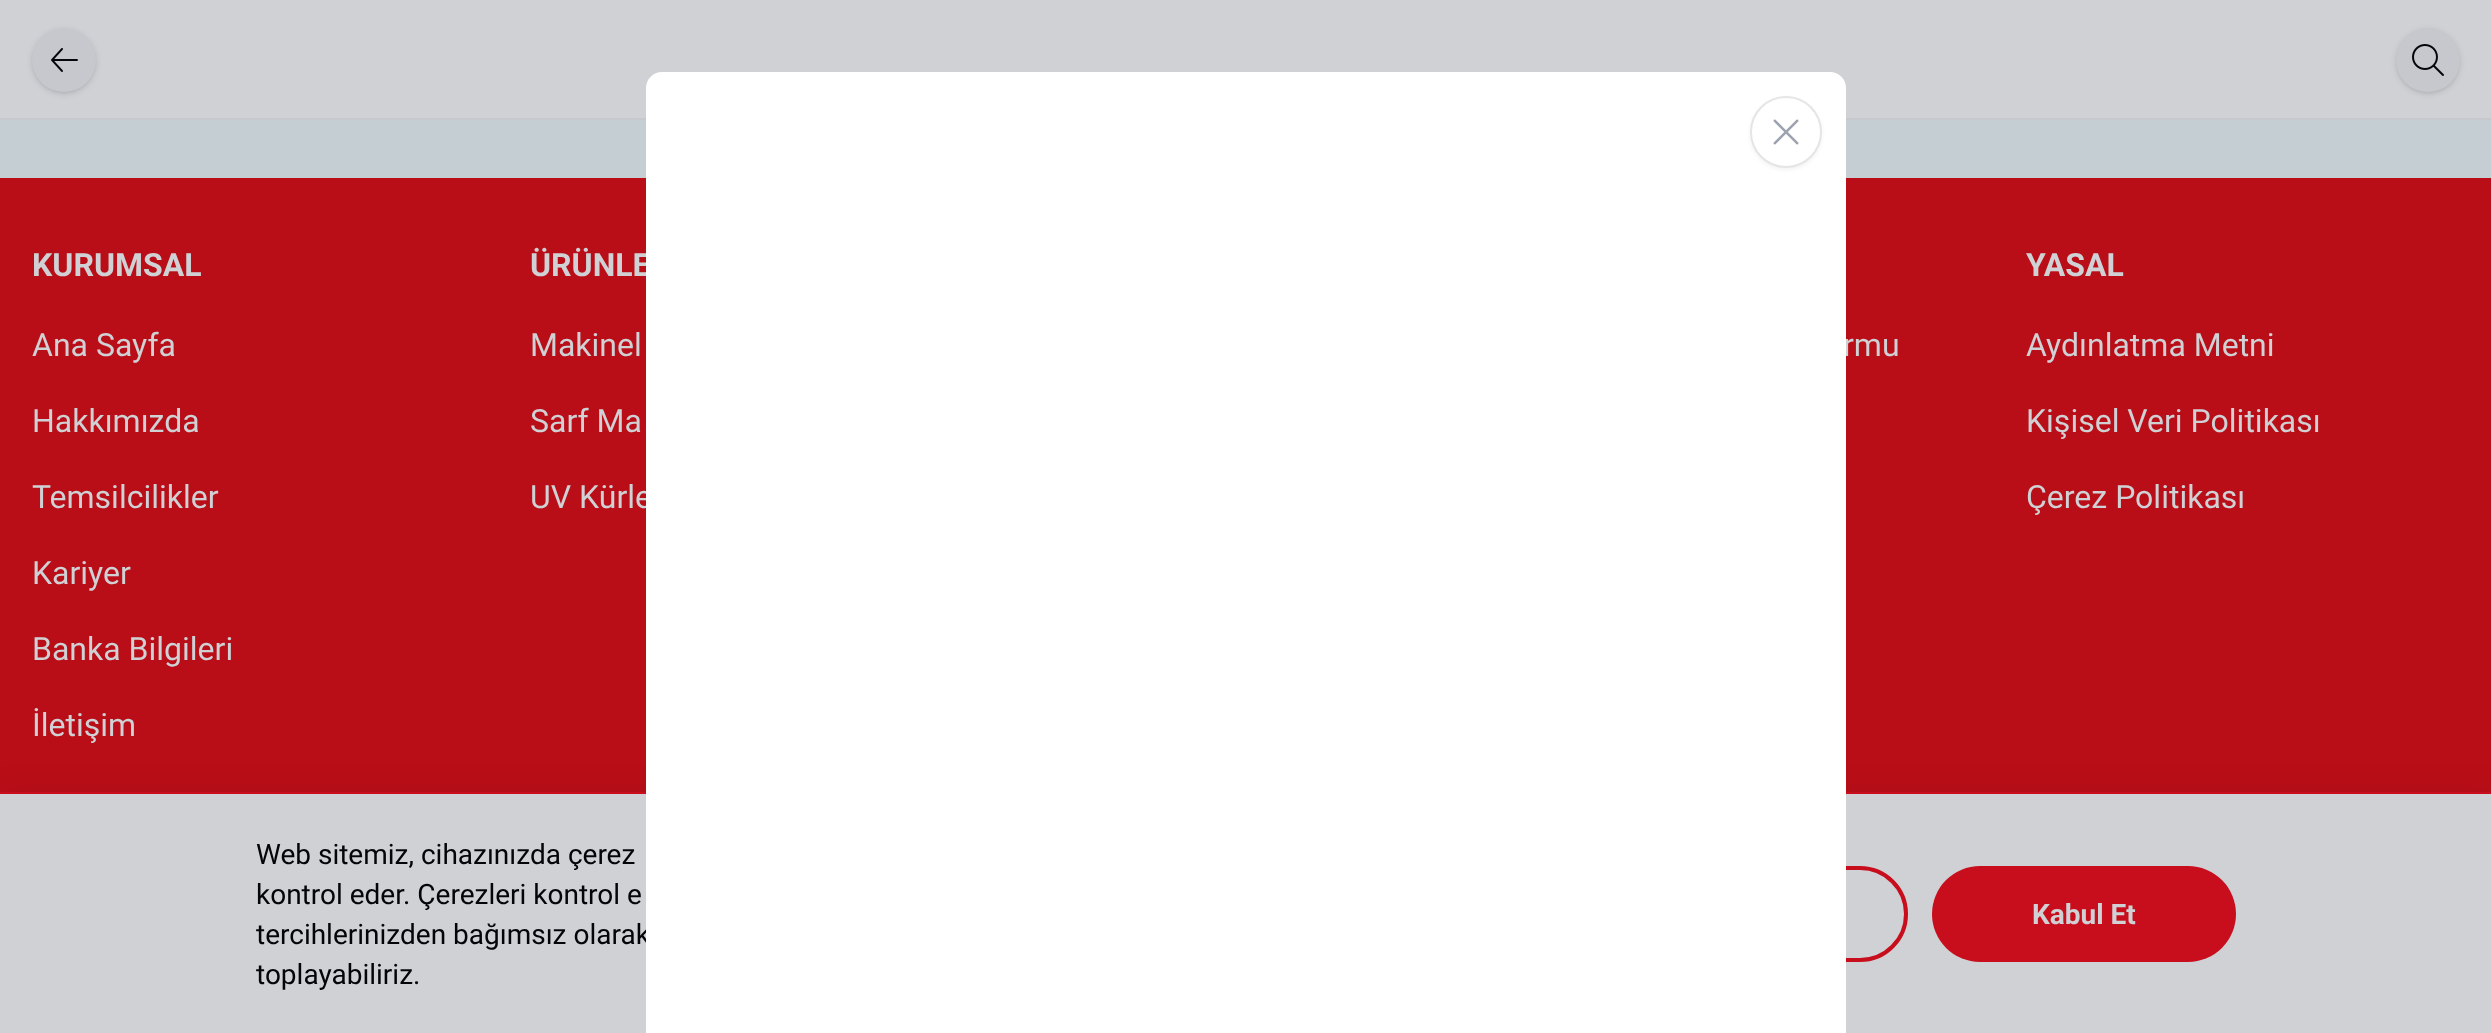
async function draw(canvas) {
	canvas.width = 2491;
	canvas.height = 1033;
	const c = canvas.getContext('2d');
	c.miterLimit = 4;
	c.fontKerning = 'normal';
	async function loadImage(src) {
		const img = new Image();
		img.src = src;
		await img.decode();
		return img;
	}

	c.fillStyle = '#c5ced2';
	c.fillRect(0, 0, 2491, 1033);
	for (const [x, y, w, h, color] of [
		[0, 0, 2491, 118, '#cfd1d4'],
		[0, 118, 2491, 2, '#c6c8cd'],
		[0, 178, 2491, 614, '#b90e18'],
	]) {
		c.fillStyle = color;
		c.fillRect(x, y, w, h);
	}
	c.font = 'bold 32px Roboto';
	c.fillStyle = '#cfd1d4';
	c.fillText('ÜRÜNLE', 530, 276);
	c.font = '32px Roboto';
	c.fillText('UV Kürle', 530, 508);
	c.fillText('rmu', 1843, 356);
	c.fillStyle = '#0305081a';
	c.filter = 'blur(20px)';
	c.beginPath();
	c.rect(0, 802, 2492, 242);
	c.fill();
	c.filter = 'none';
	c.fillStyle = '#cfd1d4';
	c.fillRect(0, 794, 2491, 239);
	c.fillStyle = '#c80e1d';
	c.fillRect(0, 792, 2491, 2);
	c.font = '28px Roboto';
	c.fillStyle = '#030508';
	c.fillText('tercihlerinizden bağımsız olarak', 256, 944);
	c.beginPath();
	c.roundRect(1622, 868, 284, 92, 46);
	c.strokeStyle = '#c80e1d';
	c.lineWidth = 4;
	c.stroke();
	c.fillStyle = '#fff';
	c.beginPath();
	c.moveTo(662, 72);
	c.lineTo(1830, 72);
	c.bezierCurveTo(1839, 72, 1846, 79, 1846, 88);
	c.lineTo(1846, 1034);
	c.lineTo(646, 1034);
	c.lineTo(646, 88);
	c.bezierCurveTo(646, 79, 653, 72, 662, 72);
	c.closePath();
	c.fill();
	c.fillStyle = '#0000000d';
	c.filter = 'blur(2px)';
	c.beginPath();
	c.roundRect(1750, 98, 72, 72, 36);
	c.fill();
	c.filter = 'none';
	c.fillStyle = '#fff';
	c.beginPath();
	c.arc(1786, 132, 35, 0, 2 * Math.PI);
	c.fill();
	c.strokeStyle = '#e5e5e5';
	c.lineWidth = 2;
	c.stroke();
	c.drawImage(await loadImage('img1.png'), 1773, 119, 26, 26);
	c.fillStyle = '#0305081a';
	c.filter = 'blur(2px)';
	c.beginPath();
	c.roundRect(34, 32, 60, 60, 30);
	c.fill();
	c.filter = 'none';
	c.filter = 'blur(3px)';
	c.beginPath();
	c.roundRect(32, 30, 64, 64, 32);
	c.fill();
	c.filter = 'none';
	c.fillStyle = '#c6c8cd';
	c.beginPath();
	c.arc(64, 60, 32, 0, 2 * Math.PI);
	c.fill();
	c.drawImage(await loadImage('img2.png'), 51, 48, 27, 24);
	c.fillStyle = '#0305081a';
	c.filter = 'blur(2px)';
	c.beginPath();
	c.roundRect(2398, 32, 60, 60, 30);
	c.fill();
	c.filter = 'none';
	c.filter = 'blur(3px)';
	c.beginPath();
	c.roundRect(2396, 30, 64, 64, 32);
	c.fill();
	c.filter = 'none';
	c.fillStyle = '#c6c8cd';
	c.beginPath();
	c.arc(2428, 60, 32, 0, 2 * Math.PI);
	c.fill();
	c.drawImage(await loadImage('img3.png'), 2412, 44, 32, 32);
	c.font = 'bold 32px Roboto';
	c.fillStyle = '#cfd1d4';
	c.fillText('KURUMSAL', 32, 276);
	c.font = '32px Roboto';
	for (const [text, x, y] of [
		['Ana Sayfa', 32, 356],
		['Hakkımızda', 32, 432],
		['Temsilcilikler', 32, 508],
		['Kariyer', 32, 584],
		['Banka Bilgileri', 32, 660],
		['İletişim', 32, 736],
		['Makinel', 530, 356],
		['Sarf Ma', 530, 432],
	]) {
		c.fillText(text, x, y);
	}
	c.font = 'bold 32px Roboto';
	c.fillText('YASAL', 2026, 276);
	c.font = '32px Roboto';
	for (const [text, x, y] of [
		['Aydınlatma Metni', 2026, 356],
		['Kişisel Veri Politikası', 2026, 432],
		['Çerez Politikası', 2026, 508],
	]) {
		c.fillText(text, x, y);
	}
	c.font = '28px Roboto';
	c.fillStyle = '#030508';
	for (const [text, x, y] of [
		['Web sitemiz, cihazınızda çerez', 256, 864],
		['kontrol eder. Çerezleri kontrol e', 256, 904],
		['toplayabiliriz.', 256, 984],
	]) {
		c.fillText(text, x, y);
	}
	c.fillStyle = '#c80e1d';
	c.beginPath();
	c.roundRect(1932, 866, 304, 96, 48);
	c.fill();
	c.font = 'bold 28px Roboto';
	c.fillStyle = '#cfd1d4';
	c.fillText('Kabul Et', 2032, 924);
}

draw(document.querySelector('canvas'));
